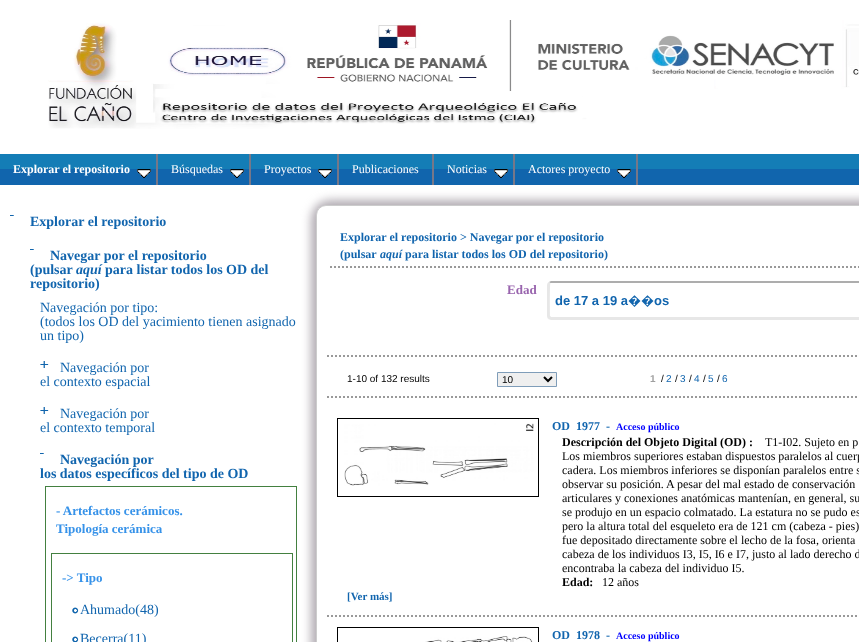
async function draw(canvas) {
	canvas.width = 859;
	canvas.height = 642;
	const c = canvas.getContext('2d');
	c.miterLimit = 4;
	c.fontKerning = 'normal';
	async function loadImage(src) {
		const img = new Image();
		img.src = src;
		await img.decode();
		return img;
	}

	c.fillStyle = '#fff';
	c.fillRect(0, 0, 859, 642);
	c.drawImage(await loadImage('img1.png'), 48, 20, 811, 109);
	for (const [x, y, w, h, color] of [
		[638, 169, 221, 16, '#1165ad'],
		[638, 154, 221, 15, '#147db6'],
		[0, 169, 156, 16, '#1165ad'],
		[0, 154, 156, 15, '#147db6'],
		[156, 154, 2, 31, '#778'],
	]) {
		c.fillStyle = color;
		c.fillRect(x, y, w, h);
	}
	c.font = 'bold 12px Liberation Serif';
	c.fillStyle = '#fff';
	c.fillText('Explorar el repositorio', 13, 173);
	c.drawImage(await loadImage('img2.png'), 137, 169, 14, 9);
	for (const [x, y, w, h, color] of [
		[158, 169, 91, 16, '#1165ad'],
		[158, 154, 91, 15, '#147db6'],
		[249, 154, 2, 31, '#778'],
	]) {
		c.fillStyle = color;
		c.fillRect(x, y, w, h);
	}
	c.font = '12px Liberation Serif';
	c.fillStyle = '#fff';
	c.fillText('Búsquedas', 171, 173);
	c.drawImage(await loadImage('img2.png'), 230, 169, 14, 9);
	c.fillStyle = '#b2acb3';
	c.filter = 'blur(5px)';
	c.beginPath();
	c.roundRect(311, 200, 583, 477, 20);
	c.fill();
	c.filter = 'none';
	for (const [x, y, w, h, color] of [
		[251, 169, 86, 16, '#1165ad'],
		[251, 154, 86, 15, '#147db6'],
		[337, 154, 2, 31, '#778'],
	]) {
		c.fillStyle = color;
		c.fillRect(x, y, w, h);
	}
	c.fillStyle = '#fff';
	c.fillText('Proyectos', 264, 173);
	c.drawImage(await loadImage('img2.png'), 318, 169, 14, 9);
	for (const [x, y, w, h, color] of [
		[339, 169, 93, 16, '#1165ad'],
		[339, 154, 93, 15, '#147db6'],
		[432, 154, 2, 31, '#778'],
	]) {
		c.fillStyle = color;
		c.fillRect(x, y, w, h);
	}
	c.fillStyle = '#fff';
	c.fillText('Publicaciones', 352, 173);
	for (const [x, y, w, h, color] of [
		[434, 169, 79, 16, '#1165ad'],
		[434, 154, 79, 15, '#147db6'],
		[513, 154, 2, 31, '#778'],
	]) {
		c.fillStyle = color;
		c.fillRect(x, y, w, h);
	}
	c.fillStyle = '#fff';
	c.fillText('Noticias', 447, 173);
	c.drawImage(await loadImage('img2.png'), 494, 169, 14, 9);
	for (const [x, y, w, h, color] of [
		[515, 169, 121, 16, '#1165ad'],
		[515, 154, 121, 15, '#147db6'],
		[636, 154, 2, 31, '#778'],
	]) {
		c.fillStyle = color;
		c.fillRect(x, y, w, h);
	}
	c.fillStyle = '#fff';
	c.fillText('Actores proyecto', 528, 173);
	c.drawImage(await loadImage('img2.png'), 617, 169, 14, 9);
	c.drawImage(await loadImage('img3.png'), 10, 215, 4, 1);
	c.font = 'bold 14px Liberation Serif';
	c.fillStyle = '#1165ae';
	c.fillText('Explorar el repositorio', 30, 226);
	c.drawImage(await loadImage('img3.png'), 30, 249, 4, 1);
	c.fillText('Navegar por el repositorio', 50, 260);
	c.fillText('(pulsar', 30, 274);
	c.font = 'italic bold 14px Liberation Serif';
	c.fillText('aquí', 76, 274);
	c.font = 'bold 14px Liberation Serif';
	c.fillText('para listar todos los OD del', 105, 274);
	c.fillText('repositorio)', 30, 288);
	c.font = '14px Liberation Serif';
	for (const [text, x, y] of [
		['Navegación por tipo:', 40, 312],
		['(todos los OD del yacimiento tienen asignado', 40, 326],
		['un tipo)', 40, 340],
	]) {
		c.fillText(text, x, y);
	}
	c.drawImage(await loadImage('img4.png'), 40, 361, 9, 7);
	c.fillText('Navegación por', 60, 372);
	c.fillText('el contexto espacial', 40, 386);
	c.drawImage(await loadImage('img4.png'), 40, 407, 9, 7);
	c.fillText('Navegación por', 60, 418);
	c.fillText('el contexto temporal', 40, 432);
	c.drawImage(await loadImage('img3.png'), 40, 453, 4, 1);
	c.font = 'bold 14px Liberation Serif';
	c.fillText('Navegación por', 60, 464);
	c.fillText('los datos específicos del tipo de OD', 40, 478);
	c.strokeStyle = '#438040';
	c.strokeRect(45.5, 486.5, 251, 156);
	c.font = 'bold 13px Liberation Serif';
	c.fillStyle = '#3692e9';
	c.fillText('- Artefactos cerámicos.', 56, 515);
	c.fillText('Tipología cerámica', 56, 533);
	c.strokeRect(51.5, 553.5, 241, 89);
	c.fillText('-> Tipo', 62, 582);
	c.drawImage(await loadImage('img5.png'), 72, 607, 7, 7);
	c.font = '14px Liberation Serif';
	c.fillStyle = '#1165ae';
	c.fillText('Ahumado(48)', 80, 614);
	c.drawImage(await loadImage('img6.png'), 72, 636, 7, 6);
	c.fillText('Becerra(11)', 80, 643);
	c.fillStyle = '#fff';
	c.beginPath();
	c.roundRect(316.5, 205.5, 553, 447, 9.5);
	c.fill();
	c.strokeStyle = '#ccc';
	c.stroke();
	c.beginPath();
	c.moveTo(330, 267);
	c.lineTo(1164, 267);
	c.strokeStyle = '#999';
	c.lineWidth = 2;
	c.setLineDash([2, 2]);
	c.stroke();
	c.font = 'bold 12px Liberation Serif';
	c.fillStyle = '#1165ae';
	c.fillText('Explorar el repositorio > Navegar por el repositorio', 340, 241);
	c.fillText('(pulsar', 340, 258);
	c.font = 'italic bold 12px Liberation Serif';
	c.fillText('aquí', 380, 258);
	c.font = 'bold 12px Liberation Serif';
	c.fillText('para listar todos los OD del repositorio)', 405, 258);
	c.beginPath();
	c.moveTo(327, 356);
	c.lineTo(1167, 356);
	c.stroke();
	c.font = 'bold 13px Liberation Serif';
	c.fillStyle = '#9965ae';
	c.fillText('Edad', 507, 294);
	c.fillStyle = '#adadad';
	c.beginPath();
	c.moveTo(551, 281);
	c.lineTo(549, 282);
	c.lineTo(550, 283);
	c.lineTo(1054, 283);
	c.lineTo(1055, 281);
	c.closePath();
	c.fill();
	c.fillStyle = '#e7e7e7';
	c.beginPath();
	c.moveTo(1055, 320);
	c.lineTo(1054, 317);
	c.lineTo(551, 317);
	c.lineTo(550, 316);
	c.lineTo(548, 319);
	c.lineTo(551, 320);
	c.closePath();
	c.fill();
	c.beginPath();
	c.moveTo(547, 285);
	c.lineTo(547, 316);
	c.bezierCurveTo(547, 317, 547.5, 318, 548, 319);
	c.lineTo(550.5, 316.5);
	c.lineTo(550, 316);
	c.bezierCurveTo(550, 312.5, 549.5, 284, 550.5, 283);
	c.lineTo(548.5, 282);
	c.bezierCurveTo(547.5, 283, 547, 284, 547, 285);
	c.closePath();
	c.fill();
	c.font = 'bold 13px Liberation Sans';
	c.fillStyle = '#1165ae';
	c.fillText('de 17 a 19 a', 555, 305);
	c.font = 'bold 13px Noto Sans';
	c.fillText('��', 628, 305);
	c.font = 'bold 13px Liberation Sans';
	c.fillText('os', 654, 305);
	c.beginPath();
	c.moveTo(327, 397);
	c.lineTo(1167, 397);
	c.stroke();
	c.font = '10px Liberation Sans';
	c.fillStyle = '#000';
	c.fillText('1-10 of 132 results', 347, 382);
	c.fillStyle = '#efefef';
	c.beginPath();
	c.rect(497.5, 372.5, 59, 14);
	c.fill();
	c.strokeStyle = '#7f9db9';
	c.lineWidth = 1;
	c.setLineDash([]);
	c.stroke();
	c.beginPath();
	c.moveTo(544, 377);
	c.lineTo(548, 381);
	c.lineTo(552, 377);
	c.strokeStyle = '#000';
	c.lineWidth = 2;
	c.stroke();
	c.fillStyle = '#000';
	c.fillText('10', 502, 383);
	c.font = 'bold 10px Liberation Sans';
	c.fillStyle = '#9f9f9f';
	c.fillText('1', 650, 382);
	c.font = '10px Liberation Sans';
	c.fillStyle = '#000';
	c.fillText('/', 661, 382);
	c.fillStyle = '#1165ae';
	c.fillText('2', 666, 382);
	c.fillStyle = '#000';
	c.fillText('/', 675, 382);
	c.fillStyle = '#1165ae';
	c.fillText('3', 680, 382);
	c.fillStyle = '#000';
	c.fillText('/', 689, 382);
	c.fillStyle = '#1165ae';
	c.fillText('4', 694, 382);
	c.fillStyle = '#000';
	c.fillText('/', 703, 382);
	c.fillStyle = '#1165ae';
	c.fillText('5', 708, 382);
	c.fillStyle = '#000';
	c.fillText('/', 717, 382);
	c.fillStyle = '#1165ae';
	c.fillText('6', 722, 382);
	c.beginPath();
	c.moveTo(327, 616);
	c.lineTo(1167, 616);
	c.strokeStyle = '#999';
	c.setLineDash([2, 2]);
	c.stroke();
	c.strokeStyle = '#000';
	c.lineWidth = 1;
	c.setLineDash([]);
	c.strokeRect(337.5, 418.5, 201, 78);
	c.drawImage(await loadImage('img7.png'), 344, 423, 190, 63);
	c.font = 'bold 12px Liberation Serif';
	for (const [text, x, y] of [
		['OD', 552, 430],
		['1977', 576, 430],
		['-', 606, 430],
	]) {
		c.fillText(text, x, y);
	}
	c.font = 'bold 10px Liberation Serif';
	c.fillStyle = '#00f';
	c.fillText('Acceso público', 616, 430);
	c.font = 'bold 12px Liberation Serif';
	c.fillStyle = '#000';
	c.fillText('Descripción del Objeto Digital (OD) :', 562, 446);
	c.font = '12px Liberation Serif';
	for (const [text, x, y] of [
		['T1-I02. Sujeto en p', 765, 446],
		['Los miembros superiores estaban dispuestos paralelos al cuerp', 562, 460],
		['cadera. Los miembros inferiores se disponían paralelos entre s', 562, 474],
		['observar su posición. A pesar del mal estado de conservación', 562, 488],
		['articulares y conexiones anatómicas mantenían, en general, su', 562, 502],
		['se produjo en un espacio colmatado. La estatura no se pudo es', 562, 516],
		['pero la altura total del esqueleto era de 121 cm (cabeza - pies)', 562, 530],
		['fue depositado directamente sobre el lecho de la fosa, orienta', 562, 544],
		['cabeza de los individuos I3, I5, I6 e I7, justo al lado derecho d', 562, 558],
		['encontraba la cabeza del individuo I5.', 562, 572],
	]) {
		c.fillText(text, x, y);
	}
	c.font = 'bold 12px Liberation Serif';
	c.fillText('Edad:', 562, 586);
	c.font = '12px Liberation Serif';
	c.fillText('12 años', 602, 586);
	c.font = 'bold 11px Liberation Serif';
	c.fillStyle = '#1165ae';
	c.fillText('[Ver más]', 347, 600);
	c.strokeRect(337.5, 627.5, 201, 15);
	c.drawImage(await loadImage('img8.png'), 425, 636, 108, 6);
	c.font = 'bold 12px Liberation Serif';
	for (const [text, x, y] of [
		['OD', 552, 639],
		['1978', 576, 639],
		['-', 606, 639],
	]) {
		c.fillText(text, x, y);
	}
	c.font = 'bold 10px Liberation Serif';
	c.fillStyle = '#00f';
	c.fillText('Acceso público', 616, 639);
}

draw(document.querySelector('canvas'));
